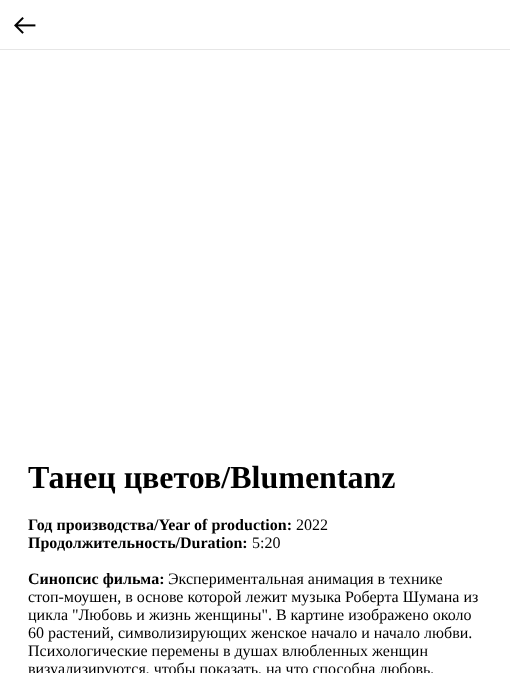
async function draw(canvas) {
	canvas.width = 510;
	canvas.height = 673;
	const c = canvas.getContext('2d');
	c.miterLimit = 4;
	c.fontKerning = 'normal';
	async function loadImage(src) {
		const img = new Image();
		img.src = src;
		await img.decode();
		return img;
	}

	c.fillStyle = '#fff';
	c.fillRect(0, 0, 510, 673);
	c.fillStyle = '#e6e6e6';
	c.fillRect(0, 49, 510, 1);
	c.drawImage(await loadImage('img1.png'), 14, 17, 22, 17);
	c.font = 'bold 32px Liberation Serif';
	c.fillStyle = '#000';
	c.fillText('Танец цветов/Blumentanz', 28, 488);
	c.font = 'bold 16px Liberation Serif';
	c.fillText('Год производства/Year of production:', 28, 530);
	c.font = '16px Liberation Serif';
	c.fillText('2022', 296, 530);
	c.font = 'bold 16px Liberation Serif';
	c.fillText('Продолжительность/Duration:', 28, 548);
	c.font = '16px Liberation Serif';
	c.fillText('5:20', 252, 548);
	c.font = 'bold 16px Liberation Serif';
	c.fillText('Синопсис фильма:', 28, 584);
	c.font = '16px Liberation Serif';
	for (const [text, x, y] of [
		['Экспериментальная анимация в технике', 168, 584],
		['стоп-моушен, в основе которой лежит музыка Роберта Шумана из', 28, 602],
		['цикла "Любовь и жизнь женщины". В картине изображено около', 28, 620],
		['60 растений, символизирующих женское начало и начало любви.', 28, 638],
		['Психологические перемены в душах влюбленных женщин', 28, 656],
		['визуализируются, чтобы показать, на что способна любовь,', 28, 674],
	]) {
		c.fillText(text, x, y);
	}
}

draw(document.querySelector('canvas'));
